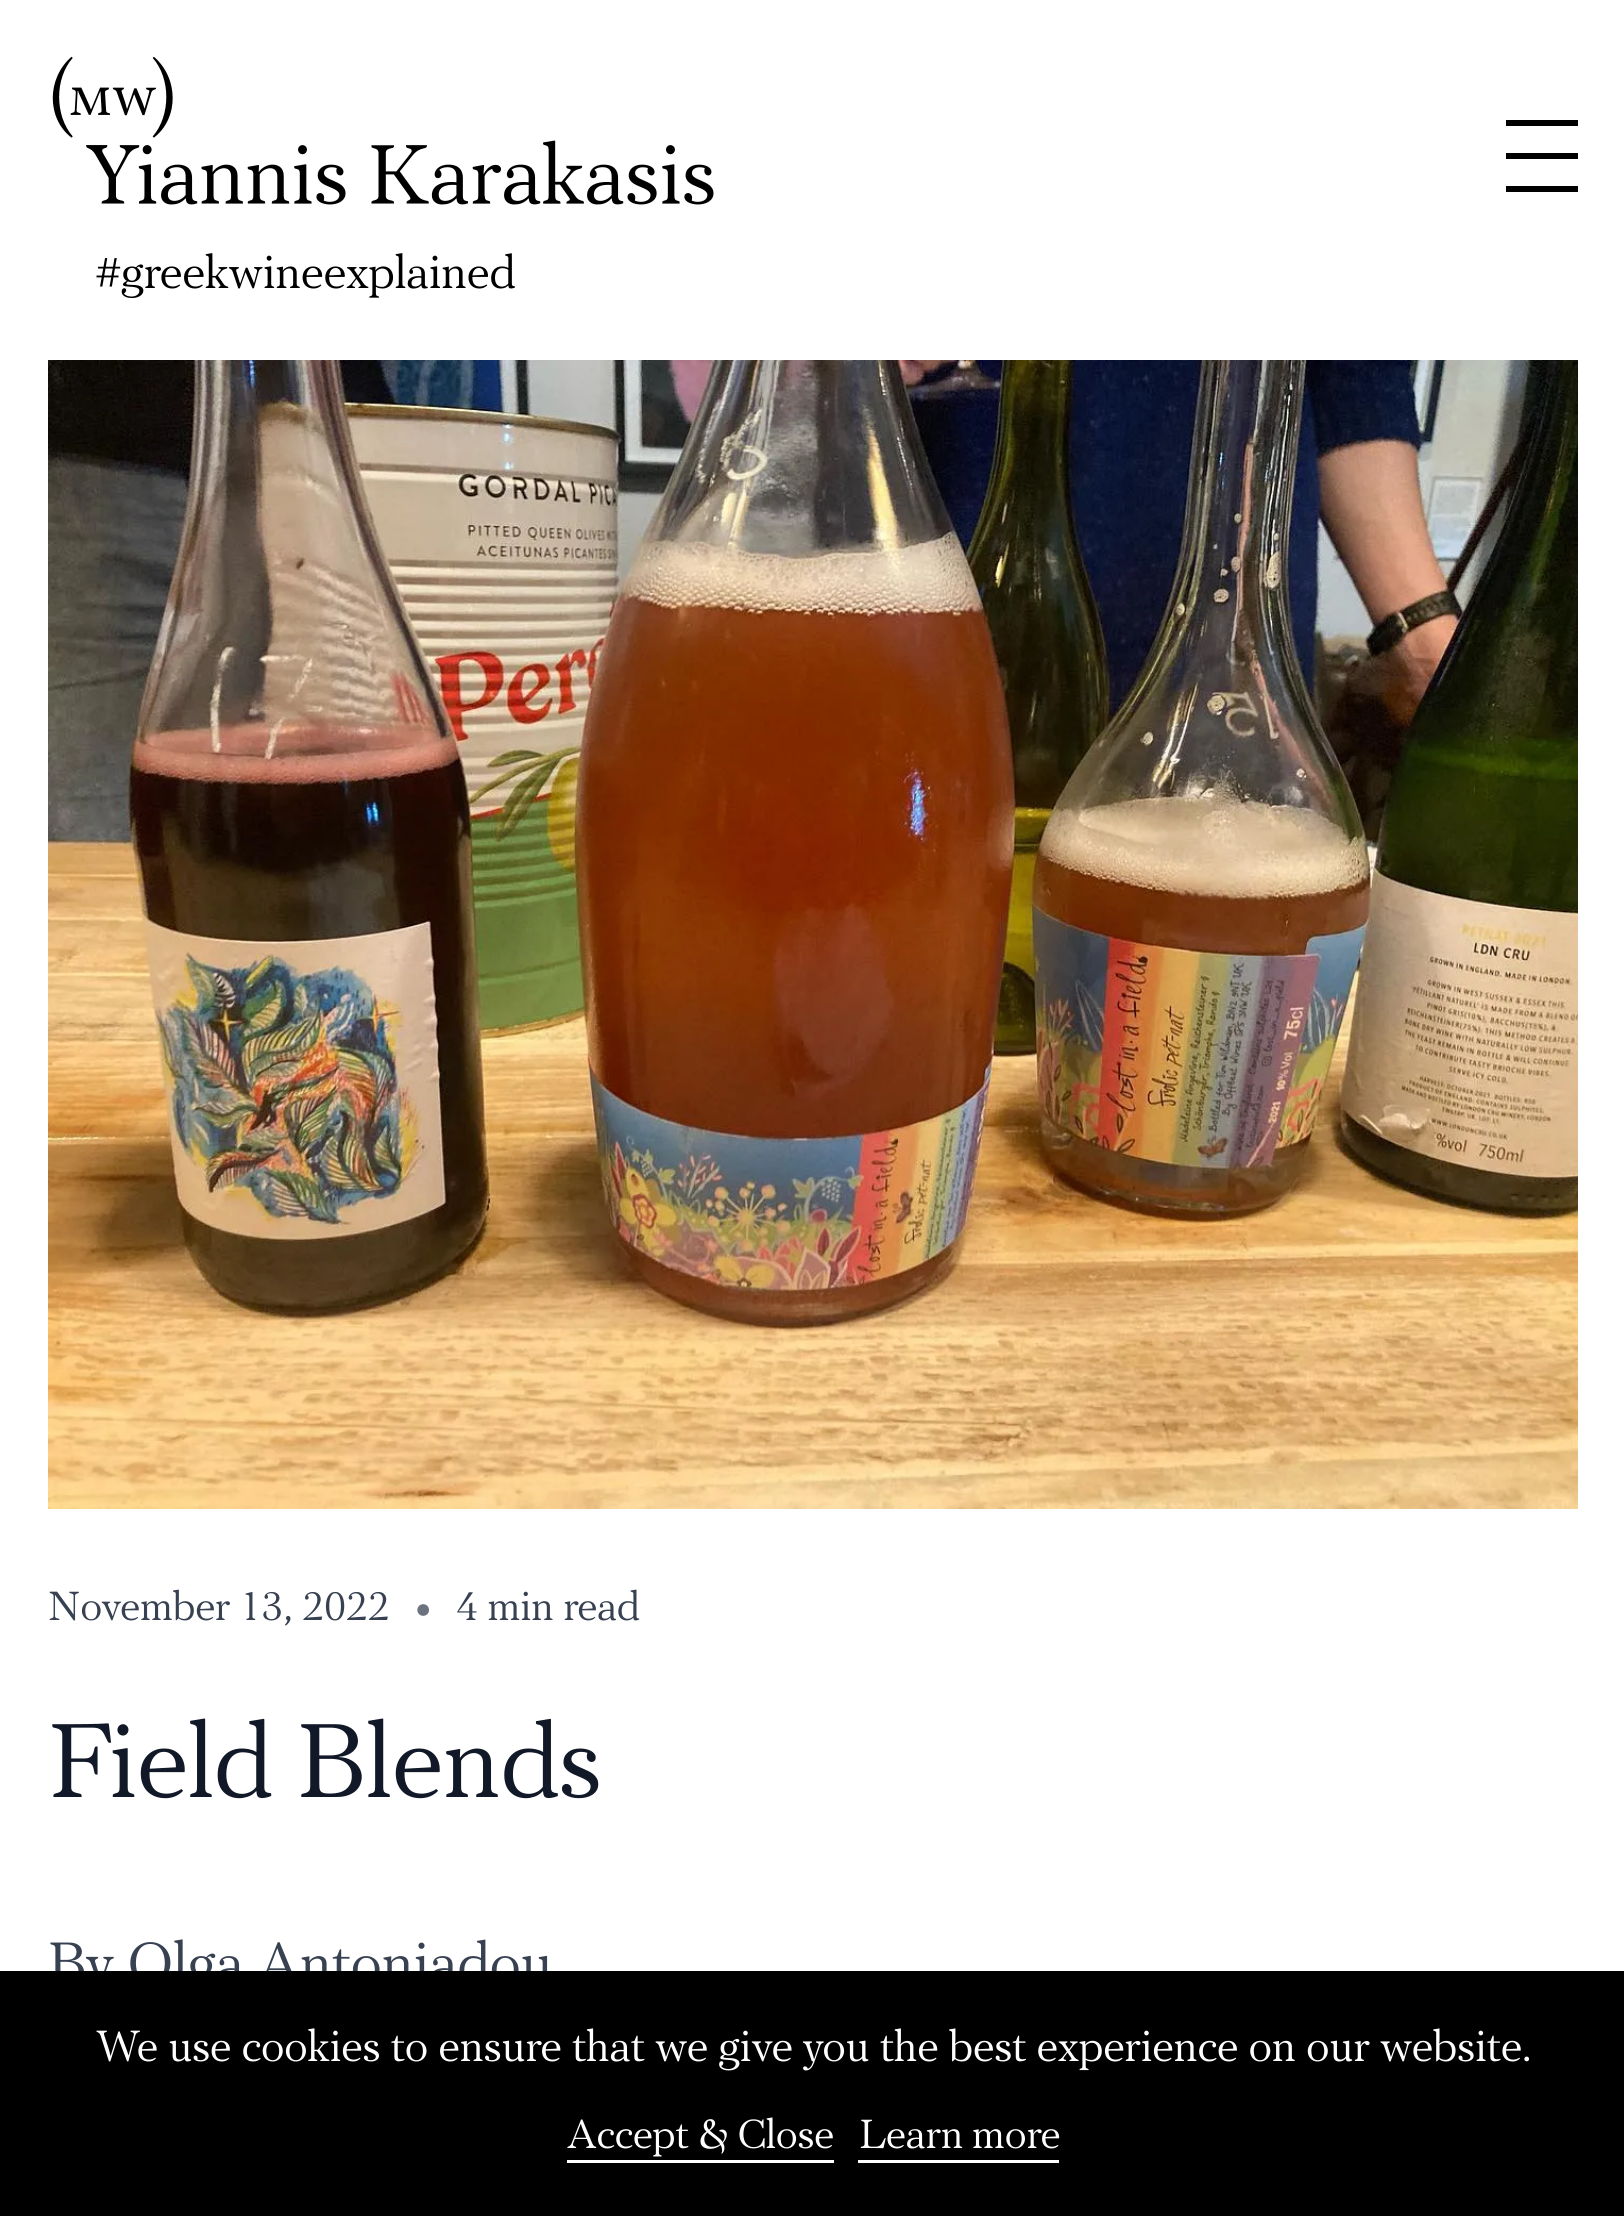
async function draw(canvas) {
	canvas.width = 1624;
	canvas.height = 2216;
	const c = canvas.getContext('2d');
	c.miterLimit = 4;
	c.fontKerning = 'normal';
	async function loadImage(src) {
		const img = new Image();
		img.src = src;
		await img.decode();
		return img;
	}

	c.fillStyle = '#fff';
	c.fillRect(0, 0, 1624, 2216);
	c.drawImage(await loadImage('img1.png'), 52, 56, 662, 149);
	for (const [x, y, w, h, color] of [
		[1506, 120, 72, 6, '#000'],
		[1506, 153, 72, 6, '#000'],
		[1506, 186, 72, 6, '#000'],
	]) {
		c.fillStyle = color;
		c.fillRect(x, y, w, h);
	}
	c.drawImage(await loadImage('img2.png'), 96, 253, 419, 45);
	c.drawImage(await loadImage('img3.png'), 48, 360, 1530, 1149);
	c.drawImage(await loadImage('img4.png'), 49, 1589, 339, 37);
	c.drawImage(await loadImage('img5.png'), 417, 1604, 12, 12);
	c.drawImage(await loadImage('img6.png'), 457, 1589, 183, 32);
	c.drawImage(await loadImage('img7.png'), 52, 1718, 547, 81);
	c.drawImage(await loadImage('img8.png'), 50, 1939, 498, 32);
	c.fillRect(0, 1971, 1624, 245);
	c.drawImage(await loadImage('img9.png'), 96, 2028, 1433, 43);
	c.drawImage(await loadImage('img10.png'), 567, 2117, 266, 40);
	c.fillStyle = '#fff';
	c.fillRect(567, 2160, 267, 3);
	c.drawImage(await loadImage('img11.png'), 860, 2119, 103, 30);
	c.drawImage(await loadImage('img12.png'), 973, 2129, 87, 20);
	c.fillRect(858, 2160, 201, 3);
}

draw(document.querySelector('canvas'));
